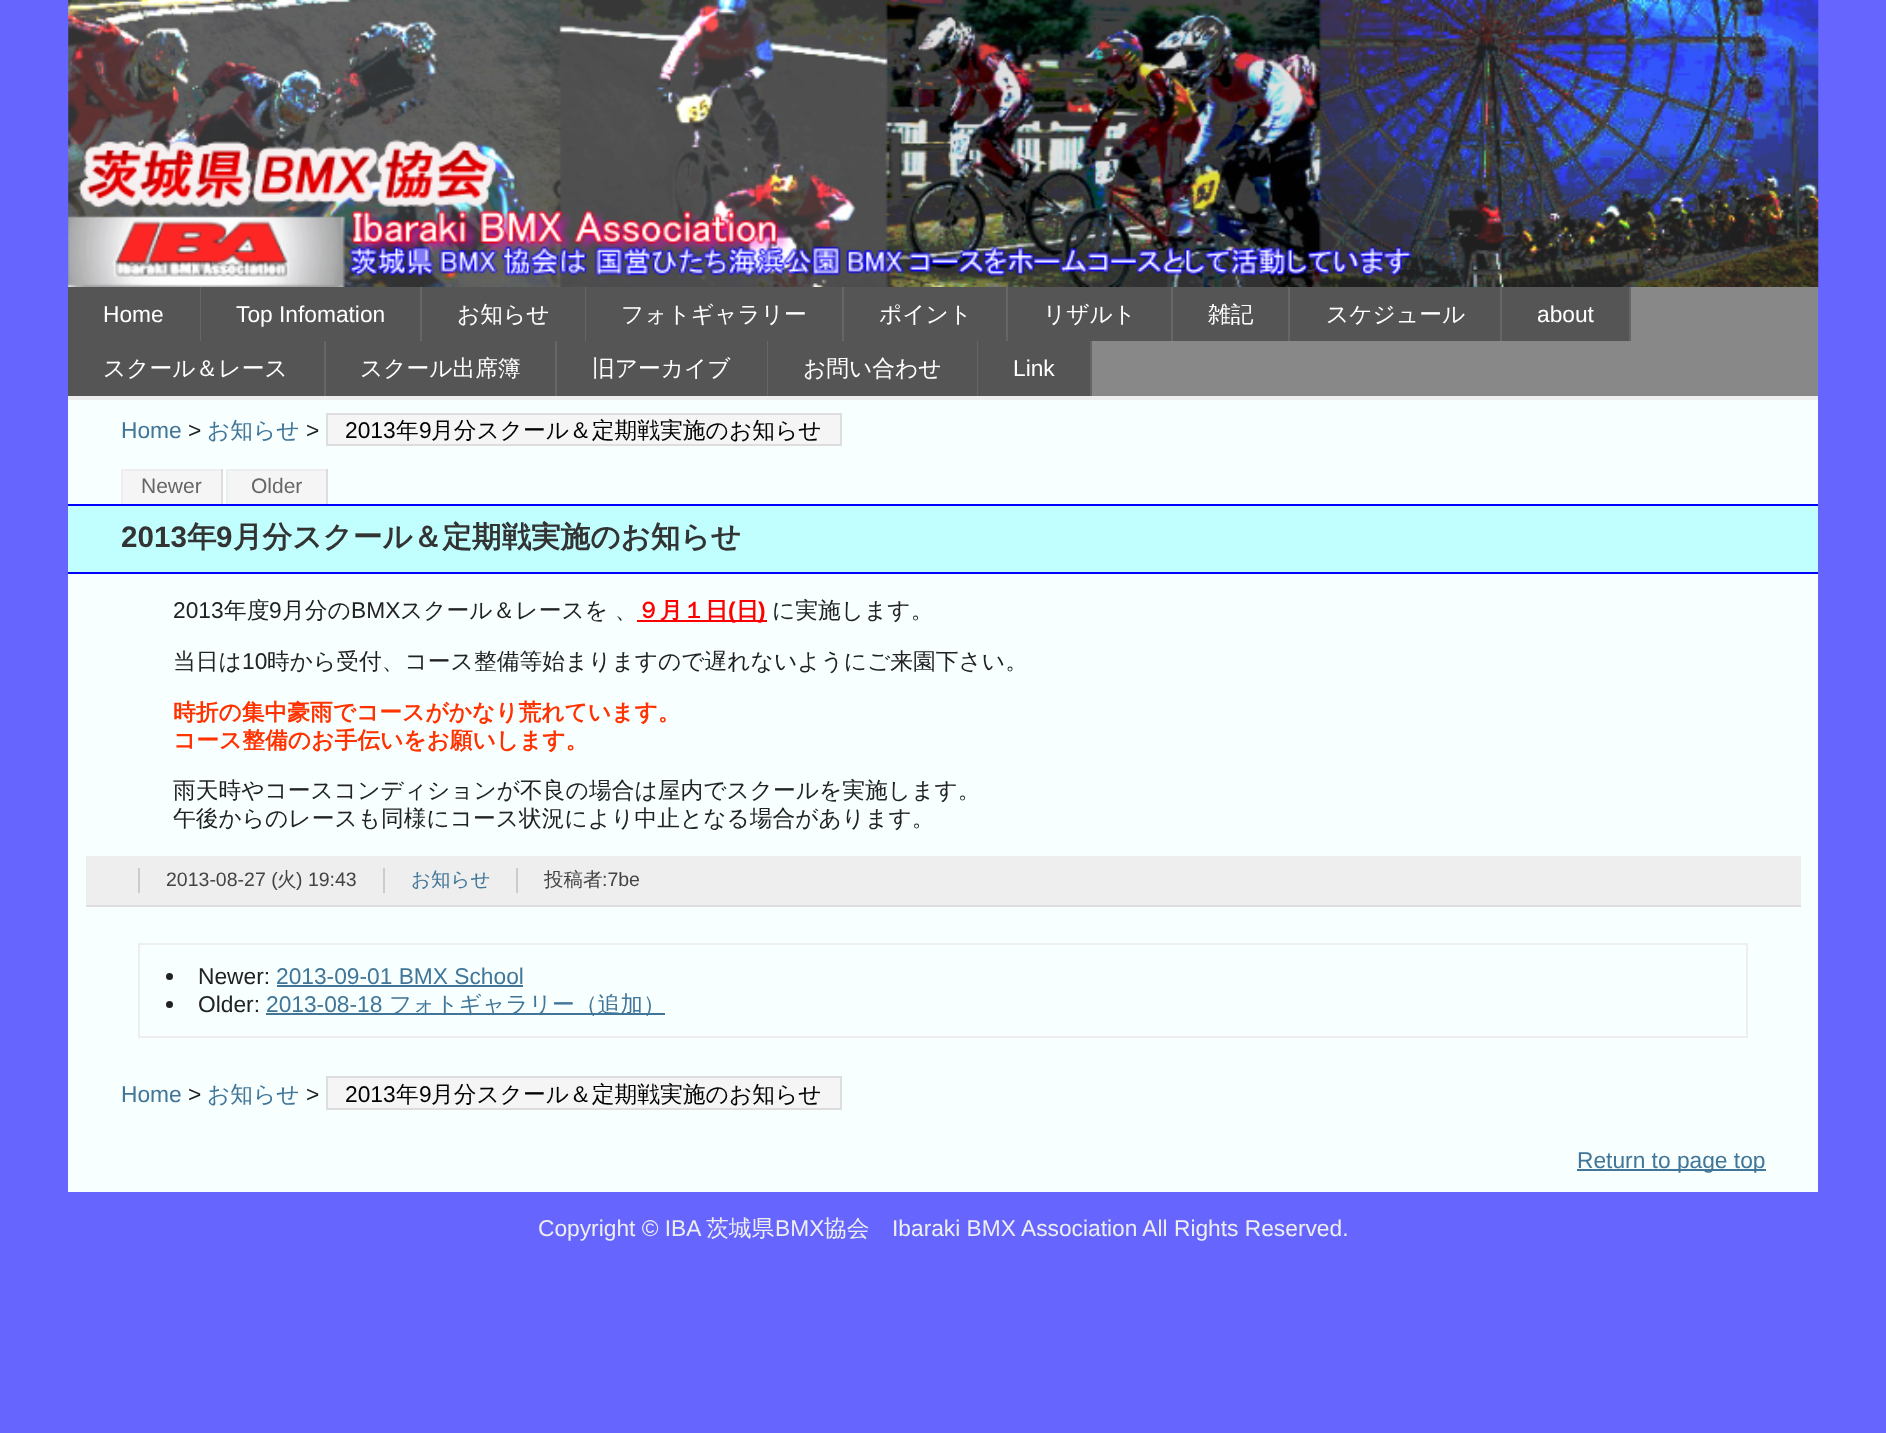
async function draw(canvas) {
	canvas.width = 1886;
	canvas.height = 1433;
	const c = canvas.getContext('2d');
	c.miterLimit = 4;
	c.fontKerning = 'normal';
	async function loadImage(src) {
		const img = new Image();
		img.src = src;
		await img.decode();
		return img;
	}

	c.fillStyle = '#66f';
	c.fillRect(0, 0, 1886, 1433);
	c.drawImage(await loadImage('img1.png'), 68, 0, 1751, 287);
	for (const [x, y, w, h, color] of [
		[1092, 287, 726, 109, '#888'],
		[68, 287, 132, 54, '#555'],
		[200, 287, 1, 54, '#666'],
	]) {
		c.fillStyle = color;
		c.fillRect(x, y, w, h);
	}
	c.font = '22.75px Liberation Sans';
	c.fillStyle = '#fff';
	c.fillText('Home', 103, 322);
	c.fillStyle = '#555';
	c.fillRect(201, 287, 219, 54);
	c.fillStyle = '#666';
	c.fillRect(420, 287, 2, 54);
	c.fillStyle = '#fff';
	c.fillText('Top Infomation', 236, 322);
	c.fillStyle = '#555';
	c.fillRect(422, 287, 163, 54);
	c.fillStyle = '#666';
	c.fillRect(585, 287, 1, 54);
	c.font = '500 22.75px WenQuanYi Zen Hei';
	c.fillStyle = '#fff';
	c.fillText('お知らせ', 457, 322);
	c.fillStyle = '#555';
	c.fillRect(586, 287, 256, 54);
	c.fillStyle = '#666';
	c.fillRect(842, 287, 2, 54);
	c.fillStyle = '#fff';
	c.fillText('フォトギャラリー', 621, 322);
	c.fillStyle = '#555';
	c.fillRect(844, 287, 162, 54);
	c.fillStyle = '#666';
	c.fillRect(1006, 287, 2, 54);
	c.fillStyle = '#fff';
	c.fillText('ポイント', 879, 322);
	c.fillStyle = '#555';
	c.fillRect(1008, 287, 163, 54);
	c.fillStyle = '#666';
	c.fillRect(1171, 287, 2, 54);
	c.fillStyle = '#fff';
	c.fillText('リザルト', 1043, 322);
	c.fillStyle = '#555';
	c.fillRect(1173, 287, 115, 54);
	c.fillStyle = '#666';
	c.fillRect(1288, 287, 2, 54);
	c.fillStyle = '#fff';
	c.fillText('雑記', 1208, 322);
	c.fillStyle = '#555';
	c.fillRect(1290, 287, 210, 54);
	c.fillStyle = '#666';
	c.fillRect(1500, 287, 2, 54);
	c.fillStyle = '#fff';
	c.fillText('スケジュール', 1326, 322);
	c.fillStyle = '#555';
	c.fillRect(1502, 287, 127, 54);
	c.fillStyle = '#666';
	c.fillRect(1629, 287, 2, 54);
	c.font = '22.75px Liberation Sans';
	c.fillStyle = '#fff';
	c.fillText('about', 1537, 322);
	c.fillStyle = '#555';
	c.fillRect(68, 341, 256, 55);
	c.fillStyle = '#666';
	c.fillRect(324, 341, 2, 55);
	c.font = '500 22.75px WenQuanYi Zen Hei';
	c.fillStyle = '#fff';
	c.fillText('スクール＆レース', 103, 376);
	c.fillStyle = '#555';
	c.fillRect(326, 341, 229, 55);
	c.fillStyle = '#666';
	c.fillRect(555, 341, 2, 55);
	c.fillStyle = '#fff';
	c.fillText('スクール出席簿', 360, 376);
	c.fillStyle = '#555';
	c.fillRect(557, 341, 210, 55);
	c.fillStyle = '#666';
	c.fillRect(767, 341, 1, 55);
	c.fillStyle = '#fff';
	c.fillText('旧アーカイブ', 592, 376);
	c.fillStyle = '#555';
	c.fillRect(768, 341, 209, 55);
	c.fillStyle = '#666';
	c.fillRect(977, 341, 1, 55);
	c.fillStyle = '#fff';
	c.fillText('お問い合わせ', 803, 376);
	c.fillStyle = '#555';
	c.fillRect(978, 341, 112, 55);
	c.fillStyle = '#666';
	c.fillRect(1090, 341, 2, 55);
	c.font = '22.75px Liberation Sans';
	c.fillStyle = '#fff';
	c.fillText('Link', 1013, 376);
	c.fillStyle = '#f7ffff';
	c.fillRect(68, 400, 1750, 792);
	c.fillStyle = '#eee';
	c.fillRect(68, 396, 1750, 4);
	c.fillStyle = '#417698';
	c.fillText('Home', 121, 438);
	c.fillStyle = '#222';
	c.fillText('>', 188, 438);
	c.font = '500 22.75px WenQuanYi Zen Hei';
	c.fillStyle = '#417698';
	c.fillText('お知らせ', 207, 438);
	c.font = '22.75px Liberation Sans';
	c.fillStyle = '#222';
	c.fillText('>', 306, 438);
	c.fillStyle = '#f5f5f5';
	c.beginPath();
	c.rect(327, 414, 514, 31);
	c.fill();
	c.strokeStyle = '#ddd';
	c.lineWidth = 2;
	c.stroke();
	c.fillStyle = '#000';
	c.fillText('2013', 345, 438);
	c.font = '500 22.75px WenQuanYi Zen Hei';
	c.fillText('年', 396, 438);
	c.font = '22.75px Liberation Sans';
	c.fillText('9', 419, 438);
	c.font = '500 22.75px WenQuanYi Zen Hei';
	c.fillText('月分スクール＆定期戦実施のお知らせ', 431, 438);
	for (const [x, y, w, h, color] of [
		[123, 471, 98, 33, '#f5f5f5'],
		[121, 469, 101, 2, '#eee'],
		[221, 469, 2, 35, '#ddd'],
		[121, 469, 2, 35, '#eee'],
	]) {
		c.fillStyle = color;
		c.fillRect(x, y, w, h);
	}
	c.font = '21px Liberation Sans';
	c.fillStyle = '#666';
	c.fillText('Newer', 141, 493);
	for (const [x, y, w, h, color] of [
		[228, 471, 98, 33, '#f5f5f5'],
		[226, 469, 101, 2, '#eee'],
		[326, 469, 2, 35, '#ddd'],
		[226, 469, 2, 35, '#eee'],
	]) {
		c.fillStyle = color;
		c.fillRect(x, y, w, h);
	}
	c.fillStyle = '#666';
	c.fillText('Older', 251, 493);
	for (const [x, y, w, h, color] of [
		[68, 506, 1750, 66, '#c1ffff'],
		[68, 504, 1750, 2, '#00f'],
		[68, 572, 1750, 2, '#00f'],
	]) {
		c.fillStyle = color;
		c.fillRect(x, y, w, h);
	}
	c.font = 'bold 29.6px Liberation Sans';
	c.fillStyle = '#333';
	c.fillText('2013', 121, 547);
	c.font = 'bold 29.6px WenQuanYi Zen Hei';
	c.fillText('年', 187, 547);
	c.font = 'bold 29.6px Liberation Sans';
	c.fillText('9', 216, 547);
	c.font = 'bold 29.6px WenQuanYi Zen Hei';
	c.fillText('月分スクール＆定期戦実施のお知らせ', 233, 547);
	c.font = '22.75px Liberation Sans';
	c.fillStyle = '#222';
	c.fillText('2013', 173, 618);
	c.font = '500 22.75px WenQuanYi Zen Hei';
	c.fillText('年度', 224, 618);
	c.font = '22.75px Liberation Sans';
	c.fillText('9', 269, 618);
	c.font = '500 22.75px WenQuanYi Zen Hei';
	c.fillText('月分の', 282, 618);
	c.font = '22.75px Liberation Sans';
	c.fillText('BMX', 351, 618);
	c.font = '500 22.75px WenQuanYi Zen Hei';
	c.fillText('スクール＆レースを 、', 400, 618);
	c.fillStyle = '#f00';
	c.fillRect(637, 620, 130, 2);
	c.font = 'bold 22.75px WenQuanYi Zen Hei';
	c.fillText('９月１日', 637, 618);
	c.font = 'bold 22.75px Liberation Sans';
	c.fillText('(', 728, 618);
	c.font = 'bold 22.75px WenQuanYi Zen Hei';
	c.fillText('日', 736, 618);
	c.font = 'bold 22.75px Liberation Sans';
	c.fillText(')', 758, 618);
	c.font = '500 22.75px WenQuanYi Zen Hei';
	c.fillStyle = '#222';
	c.fillText('に実施します。', 772, 618);
	c.fillText('当日は', 173, 669);
	c.font = '22.75px Liberation Sans';
	c.fillText('10', 242, 669);
	c.font = '500 22.75px WenQuanYi Zen Hei';
	c.fillText('時から受付、コース整備等始まりますので遅れないようにご来園下さい。', 267, 669);
	c.font = 'bold 22.75px WenQuanYi Zen Hei';
	c.fillStyle = '#ff3200';
	c.fillText('時折の集中豪雨でコースがかなり荒れています。', 173, 720);
	c.fillText('コース整備のお手伝いをお願いします。', 173, 748);
	c.font = '500 22.75px WenQuanYi Zen Hei';
	c.fillStyle = '#222';
	c.fillText('雨天時やコースコンディションが不良の場合は屋内でスクールを実施します。', 173, 798);
	c.fillText('午後からのレースも同様にコース状況により中止となる場合があります。', 173, 826);
	for (const [x, y, w, h, color] of [
		[86, 856, 1715, 49, '#eee'],
		[86, 905, 1715, 2, '#ddd'],
		[138, 868, 2, 25, '#ccc'],
	]) {
		c.fillStyle = color;
		c.fillRect(x, y, w, h);
	}
	c.font = '19.5px Liberation Sans';
	c.fillStyle = '#444';
	c.fillText('2013-08-27 (', 166, 886);
	c.font = '500 19.5px WenQuanYi Zen Hei';
	c.fillText('火', 277, 886);
	c.font = '19.5px Liberation Sans';
	c.fillText(') 19:43', 296, 886);
	c.fillStyle = '#ccc';
	c.fillRect(383, 868, 2, 25);
	c.font = '500 19.5px WenQuanYi Zen Hei';
	c.fillStyle = '#417698';
	c.fillText('お知らせ', 411, 886);
	c.fillStyle = '#ccc';
	c.fillRect(516, 868, 2, 25);
	c.fillStyle = '#444';
	c.fillText('投稿者', 544, 886);
	c.font = '19.5px Liberation Sans';
	c.fillText(':7be', 602, 886);
	c.strokeStyle = '#eee';
	c.strokeRect(139, 944, 1608, 93);
	c.fillStyle = '#222';
	c.beginPath();
	c.arc(169.5, 976.5, 3.5, 0, 2 * Math.PI);
	c.fill();
	c.font = '22.75px Liberation Sans';
	c.fillText('Newer:', 198, 984);
	c.fillStyle = '#417698';
	c.fillText('2013-09-01 BMX School', 276, 984);
	c.fillRect(277, 985, 246, 2);
	c.fillStyle = '#222';
	c.beginPath();
	c.arc(169.5, 1004.5, 3.5, 0, 2 * Math.PI);
	c.fill();
	c.fillText('Older:', 198, 1012);
	c.fillStyle = '#417698';
	c.fillText('2013-08-18', 266, 1012);
	c.fillRect(266, 1013, 399, 2);
	c.font = '500 22.75px WenQuanYi Zen Hei';
	c.fillText('フォトギャラリー（追加）', 389, 1012);
	c.font = '22.75px Liberation Sans';
	c.fillText('Home', 121, 1102);
	c.fillStyle = '#222';
	c.fillText('>', 188, 1102);
	c.font = '500 22.75px WenQuanYi Zen Hei';
	c.fillStyle = '#417698';
	c.fillText('お知らせ', 207, 1102);
	c.font = '22.75px Liberation Sans';
	c.fillStyle = '#222';
	c.fillText('>', 306, 1102);
	c.fillStyle = '#f5f5f5';
	c.beginPath();
	c.rect(327, 1077, 514, 32);
	c.fill();
	c.strokeStyle = '#ddd';
	c.stroke();
	c.fillStyle = '#000';
	c.fillText('2013', 345, 1102);
	c.font = '500 22.75px WenQuanYi Zen Hei';
	c.fillText('年', 396, 1102);
	c.font = '22.75px Liberation Sans';
	c.fillText('9', 419, 1102);
	c.font = '500 22.75px WenQuanYi Zen Hei';
	c.fillText('月分スクール＆定期戦実施のお知らせ', 431, 1102);
	c.fillStyle = '#417698';
	c.fillRect(1577, 1169, 189, 2);
	c.font = '22.75px Liberation Sans';
	c.fillText('Return to page top', 1577, 1168);
	c.fillStyle = '#eee';
	c.fillText('Copyright © IBA', 538, 1236);
	c.font = '500 22.75px WenQuanYi Zen Hei';
	c.fillText('茨城県', 706, 1236);
	c.font = '22.75px Liberation Sans';
	c.fillText('BMX', 775, 1236);
	c.font = '500 22.75px WenQuanYi Zen Hei';
	c.fillText('協会', 824, 1236);
	c.font = '22.75px Liberation Sans';
	c.fillText('Ibaraki BMX Association All Rights Reserved.', 892, 1236);
}

draw(document.querySelector('canvas'));
